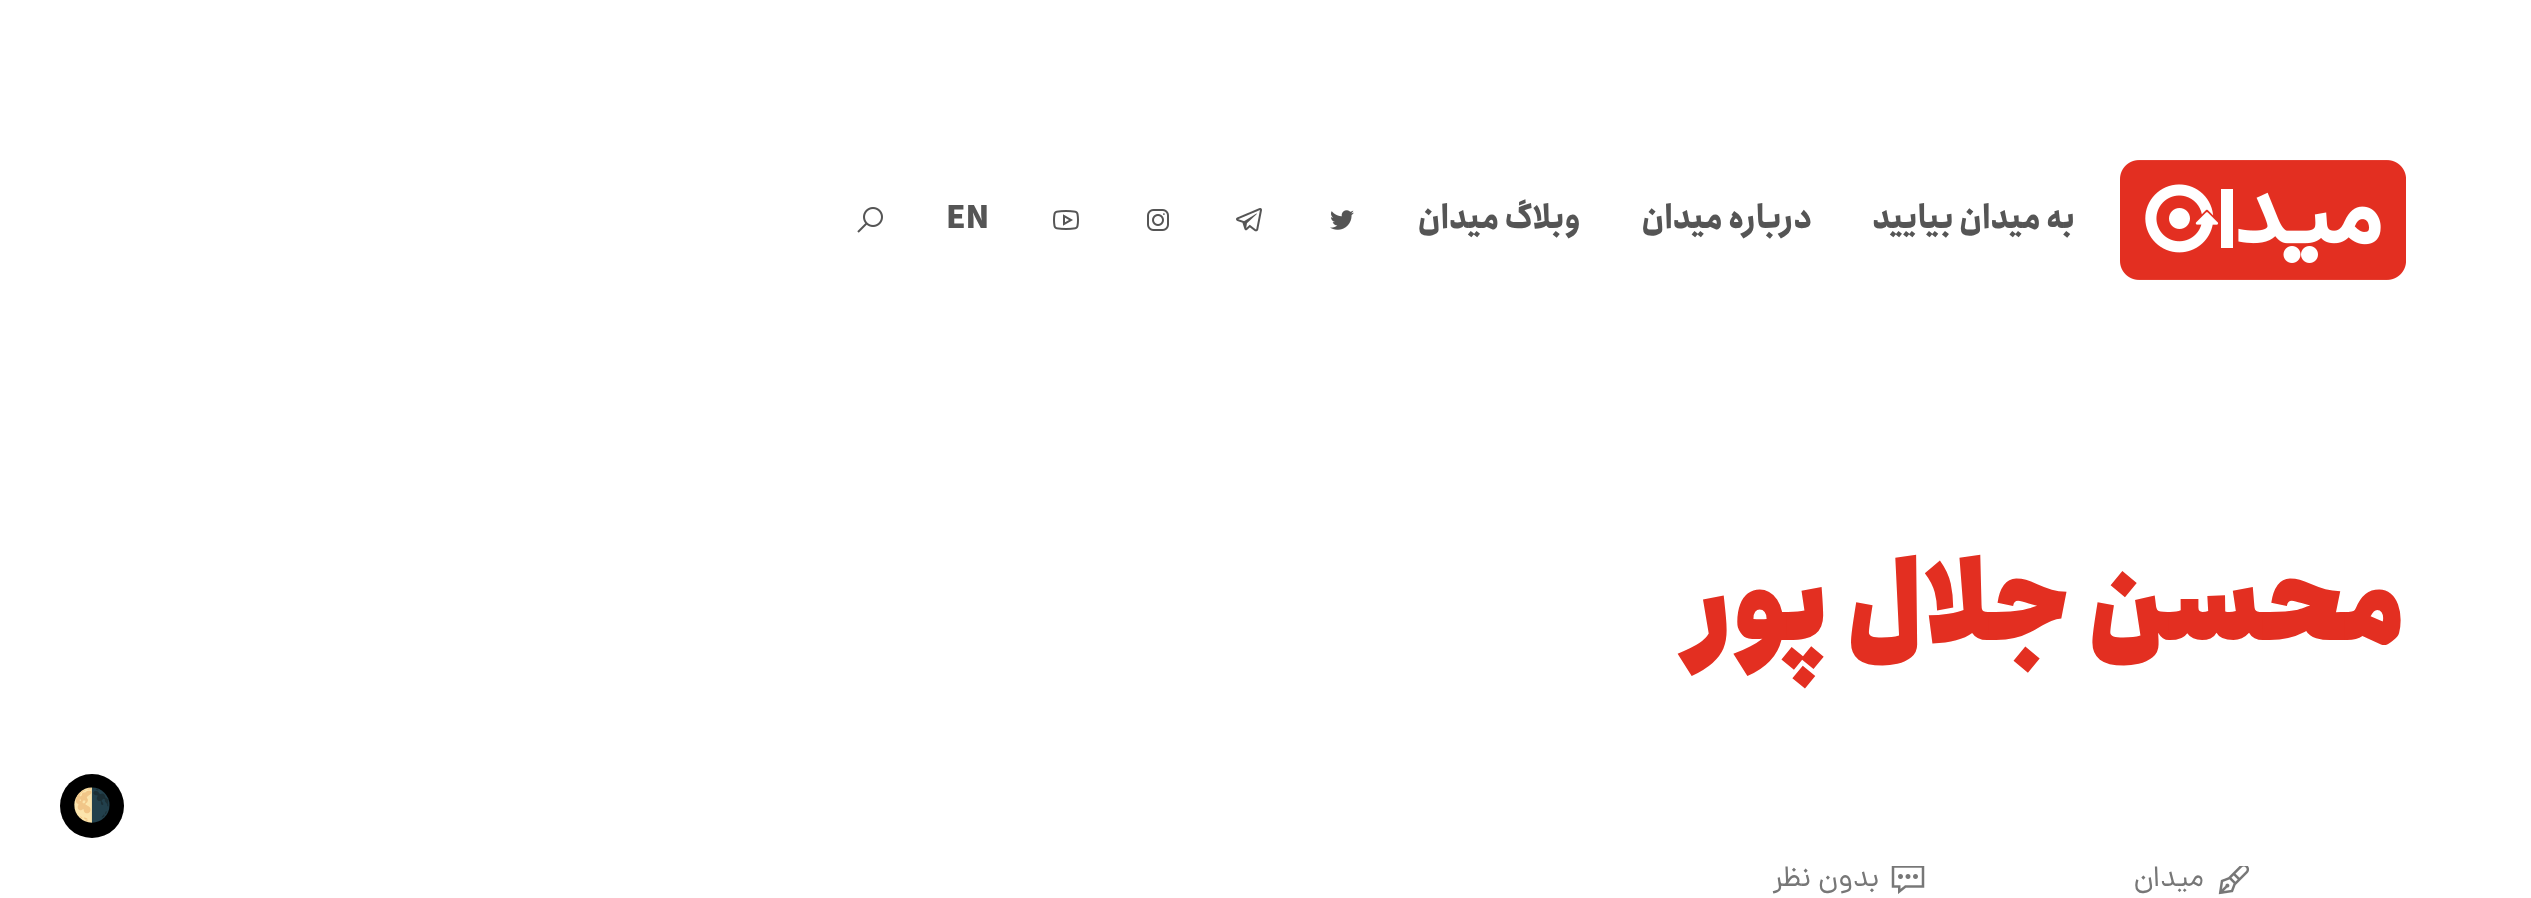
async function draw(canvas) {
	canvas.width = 2531;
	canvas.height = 898;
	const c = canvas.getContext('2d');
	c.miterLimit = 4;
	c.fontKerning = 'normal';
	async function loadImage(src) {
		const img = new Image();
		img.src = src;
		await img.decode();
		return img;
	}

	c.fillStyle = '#fff';
	c.fillRect(0, 0, 2531, 898);
	c.drawImage(await loadImage('img1.png'), 2120, 160, 286, 120);
	c.direction = 'rtl';
	c.font = '800 32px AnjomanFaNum';
	c.fillStyle = '#555';
	for (const [text, x, y] of [
		['به میدان بیایید', 2075, 228],
		['درباره میدان', 1812, 228],
		['وبلاگ میدان', 1581, 228],
	]) {
		c.fillText(text, x, y);
	}
	c.drawImage(await loadImage('img2.png'), 1330, 210, 24, 20);
	c.drawImage(await loadImage('img3.png'), 1236, 208, 26, 24);
	c.drawImage(await loadImage('img4.png'), 1147, 209, 22, 22);
	c.drawImage(await loadImage('img5.png'), 1053, 210, 26, 20);
	c.direction = 'ltr';
	c.fillText('EN', 946, 228);
	c.drawImage(await loadImage('img6.png'), 857, 207, 26, 26);
	c.direction = 'rtl';
	c.font = '900 104px AnjomanFaNum';
	c.fillStyle = '#e32f21';
	c.fillText('محسن جلال پور', 2405, 640);
	c.drawImage(await loadImage('img7.png'), 2218, 866, 31, 29);
	c.font = '29.5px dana';
	c.fillStyle = '#777';
	c.fillText('میدان', 2204, 886);
	c.drawImage(await loadImage('img8.png'), 1891, 866, 34, 28);
	c.fillText('بدون نظر', 1879, 886);
	c.fillStyle = '#000';
	c.beginPath();
	c.arc(92, 806, 32, 0, 2 * Math.PI);
	c.fill();
	c.direction = 'ltr';
	c.font = '32px Noto Color Emoji';
	c.fillStyle = '#666';
	c.fillText('🌗', 72, 816);
}

draw(document.querySelector('canvas'));
